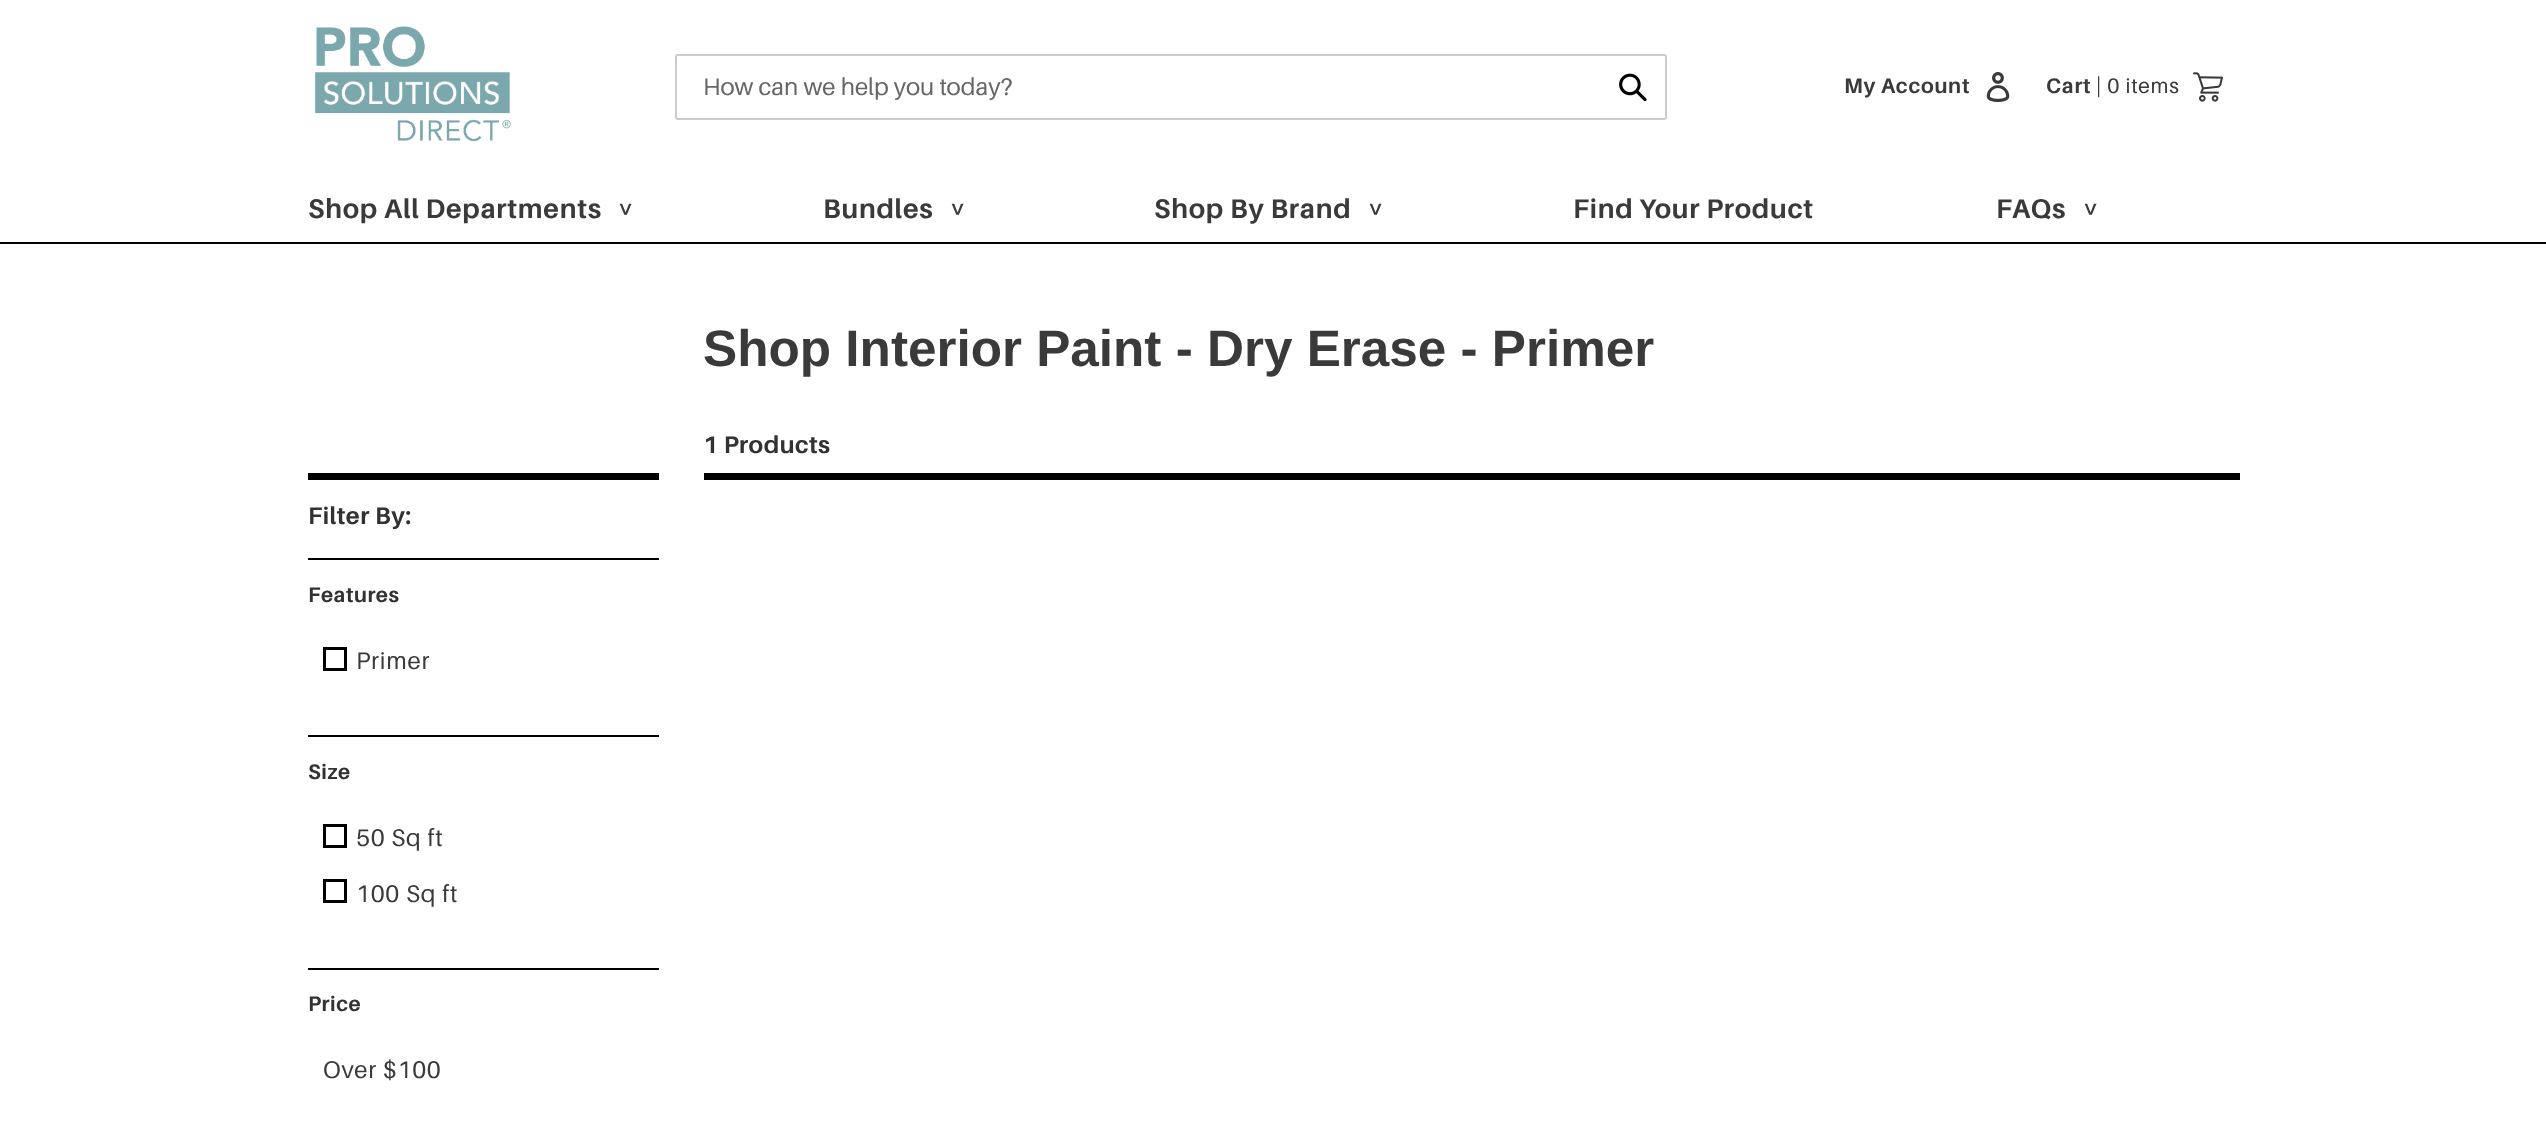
async function draw(canvas) {
	canvas.width = 2546;
	canvas.height = 1130;
	const c = canvas.getContext('2d');
	c.miterLimit = 4;
	c.fontKerning = 'normal';
	async function loadImage(src) {
		const img = new Image();
		img.src = src;
		await img.decode();
		return img;
	}

	c.fillStyle = '#fff';
	c.fillRect(0, 0, 2546, 1130);
	c.fillStyle = '#000';
	c.fillRect(0, 242, 2546, 2);
	c.drawImage(await loadImage('img1.png'), 314, 26, 197, 116);
	c.beginPath();
	c.roundRect(676, 55, 990, 64, 2);
	c.strokeStyle = '#ccc';
	c.lineWidth = 2;
	c.stroke();
	c.font = '24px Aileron';
	c.fillStyle = '#666';
	c.fillText('How can we help you today?', 703, 95);
	c.drawImage(await loadImage('img2.png'), 1619, 73, 28, 29);
	c.letterSpacing = '0.75px';
	c.font = 'bold 21px Aileron';
	c.fillStyle = '#3a3a3a';
	c.fillText('My Account', 1844, 93);
	c.drawImage(await loadImage('img3.png'), 1986, 72, 24, 30);
	c.fillText('Cart', 2046, 93);
	c.font = '21px Aileron';
	c.fillText('| 0 items', 2096, 93);
	c.drawImage(await loadImage('img4.png'), 2193, 72, 30, 30);
	c.font = 'bold 27px Aileron';
	c.fillText('Shop All Departments', 308, 218);
	c.letterSpacing = '10px';
	c.save();
	c.translate(634, 198);
	c.rotate(180 * Math.PI / 180);
	c.fillText('^', 0, 0);
	c.restore();
	c.letterSpacing = '0.75px';
	c.fillText('Bundles', 823, 218);
	c.letterSpacing = '10px';
	c.save();
	c.translate(966, 198);
	c.rotate(180 * Math.PI / 180);
	c.fillText('^', 0, 0);
	c.restore();
	c.letterSpacing = '0.75px';
	c.fillText('Shop By Brand', 1154, 218);
	c.letterSpacing = '10px';
	c.save();
	c.translate(1384, 198);
	c.rotate(180 * Math.PI / 180);
	c.fillText('^', 0, 0);
	c.restore();
	c.letterSpacing = '0.75px';
	c.fillText('Find Your Product', 1573, 218);
	c.fillText('FAQs', 1996, 218);
	c.letterSpacing = '10px';
	c.save();
	c.translate(2099, 198);
	c.rotate(180 * Math.PI / 180);
	c.fillText('^', 0, 0);
	c.restore();
	c.letterSpacing = '0px';
	c.font = 'bold 51.25px Liberation Sans';
	c.fillText('Shop Interior Paint - Dry Erase - Primer', 703, 366);
	c.letterSpacing = '0.5px';
	c.font = 'bold 24px Aileron';
	c.fillStyle = '#333232';
	c.fillText('1 Products', 703, 453);
	c.fillStyle = '#000';
	c.fillRect(704, 473, 1536, 7);
	c.fillRect(308, 473, 351, 7);
	c.fillStyle = '#333232';
	c.fillText('Filter By:', 308, 524);
	c.fillStyle = '#000';
	c.fillRect(308, 558, 351, 2);
	c.font = 'bold 21px Aileron';
	c.fillStyle = '#333232';
	c.fillText('Features', 308, 602);
	c.strokeStyle = '#000';
	c.lineWidth = 3;
	c.strokeRect(324.5, 648.5, 21, 21);
	c.letterSpacing = '0.75px';
	c.font = '24px Aileron';
	c.fillStyle = '#3a3a3a';
	c.fillText('Primer', 356, 669);
	c.fillStyle = '#000';
	c.fillRect(308, 735, 351, 2);
	c.letterSpacing = '0.5px';
	c.font = 'bold 21px Aileron';
	c.fillStyle = '#333232';
	c.fillText('Size', 308, 779);
	c.strokeRect(324.5, 825.5, 21, 21);
	c.letterSpacing = '0.75px';
	c.font = '24px Aileron';
	c.fillStyle = '#3a3a3a';
	c.fillText('50 Sq ft', 356, 846);
	c.strokeRect(324.5, 880.5, 21, 21);
	c.fillText('100 Sq ft', 356, 902);
	c.fillStyle = '#000';
	c.fillRect(308, 968, 351, 2);
	c.letterSpacing = '0.5px';
	c.font = 'bold 21px Aileron';
	c.fillStyle = '#333232';
	c.fillText('Price', 308, 1011);
	c.letterSpacing = '0.75px';
	c.font = '24px Aileron';
	c.fillStyle = '#3a3a3a';
	c.fillText('Over $100', 323, 1078);
}

draw(document.querySelector('canvas'));
